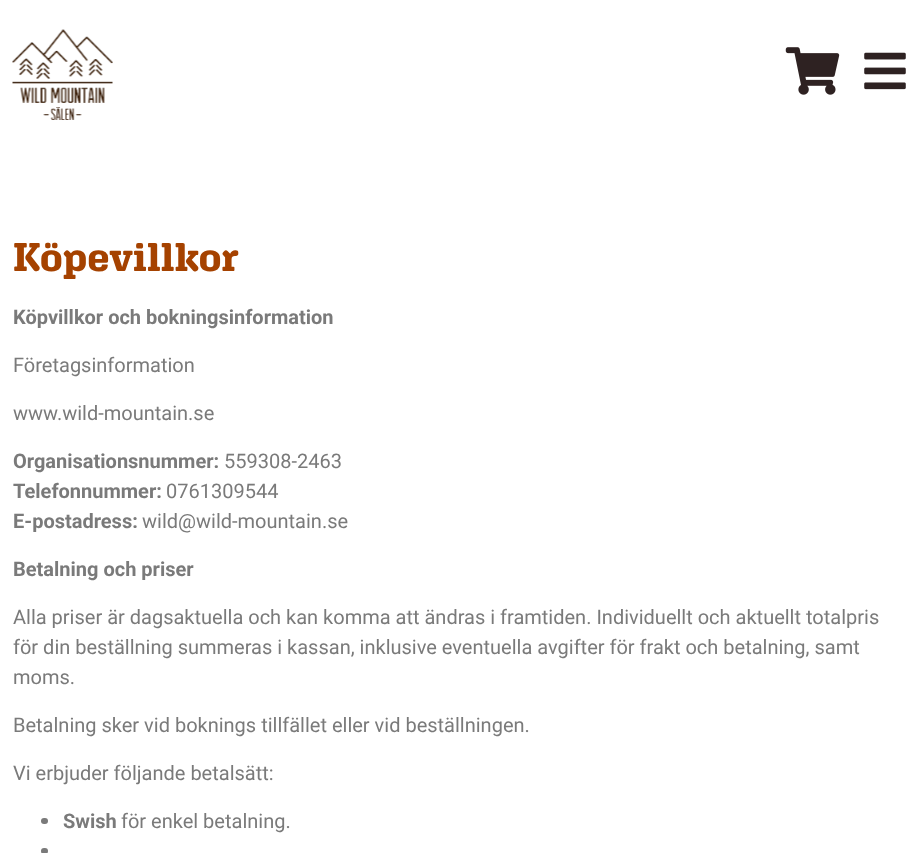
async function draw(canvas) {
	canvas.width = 921;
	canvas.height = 853;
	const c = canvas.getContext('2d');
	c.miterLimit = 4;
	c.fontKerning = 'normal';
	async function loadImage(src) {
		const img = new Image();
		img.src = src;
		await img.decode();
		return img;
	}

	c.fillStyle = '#fff';
	c.fillRect(0, 0, 921, 853);
	c.drawImage(await loadImage('img1.png'), 12, 29, 101, 91);
	c.drawImage(await loadImage('img2.png'), 785, 47, 55, 48);
	c.drawImage(await loadImage('img3.png'), 864, 52, 42, 38);
	c.font = 'bold 40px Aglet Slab';
	c.fillStyle = '#a54200';
	c.fillText('Köpevillkor', 13, 271);
	c.font = 'bold 20px Roboto';
	c.fillStyle = '#7a7a7a';
	c.fillText('Köpvillkor och bokningsinformation', 13, 324);
	c.font = '20px Roboto';
	c.fillText('Företagsinformation', 13, 372);
	c.fillText('www.wild-mountain.se', 13, 420);
	c.font = 'bold 20px Roboto';
	c.fillText('Organisationsnummer:', 13, 468);
	c.font = '20px Roboto';
	c.fillText('559308-2463', 224, 468);
	c.font = 'bold 20px Roboto';
	c.fillText('Telefonnummer:', 13, 498);
	c.font = '20px Roboto';
	c.fillText('0761309544', 166, 498);
	c.font = 'bold 20px Roboto';
	c.fillText('E-postadress:', 13, 528);
	c.font = '20px Roboto';
	c.fillText('wild@wild-mountain.se', 142, 528);
	c.font = 'bold 20px Roboto';
	c.fillText('Betalning och priser', 13, 576);
	c.font = '20px Roboto';
	for (const [text, x, y] of [
		['Alla priser är dagsaktuella och kan komma att ändras i framtiden. Individuellt och aktuellt totalpris', 13, 624],
		['för din beställning summeras i kassan, inklusive eventuella avgifter för frakt och betalning, samt', 13, 654],
		['moms.', 13, 684],
		['Betalning sker vid boknings tillfället eller vid beställningen.', 13, 732],
		['Vi erbjuder följande betalsätt:', 13, 780],
	]) {
		c.fillText(text, x, y);
	}
	c.beginPath();
	c.roundRect(41, 818, 7, 6, 3);
	c.fill();
	c.font = 'bold 20px Roboto';
	c.fillText('Swish', 63, 828);
	c.font = '20px Roboto';
	c.fillText('för enkel betalning.', 121, 828);
	c.beginPath();
	c.roundRect(41, 848, 7, 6, 3);
	c.fill();
}

draw(document.querySelector('canvas'));
